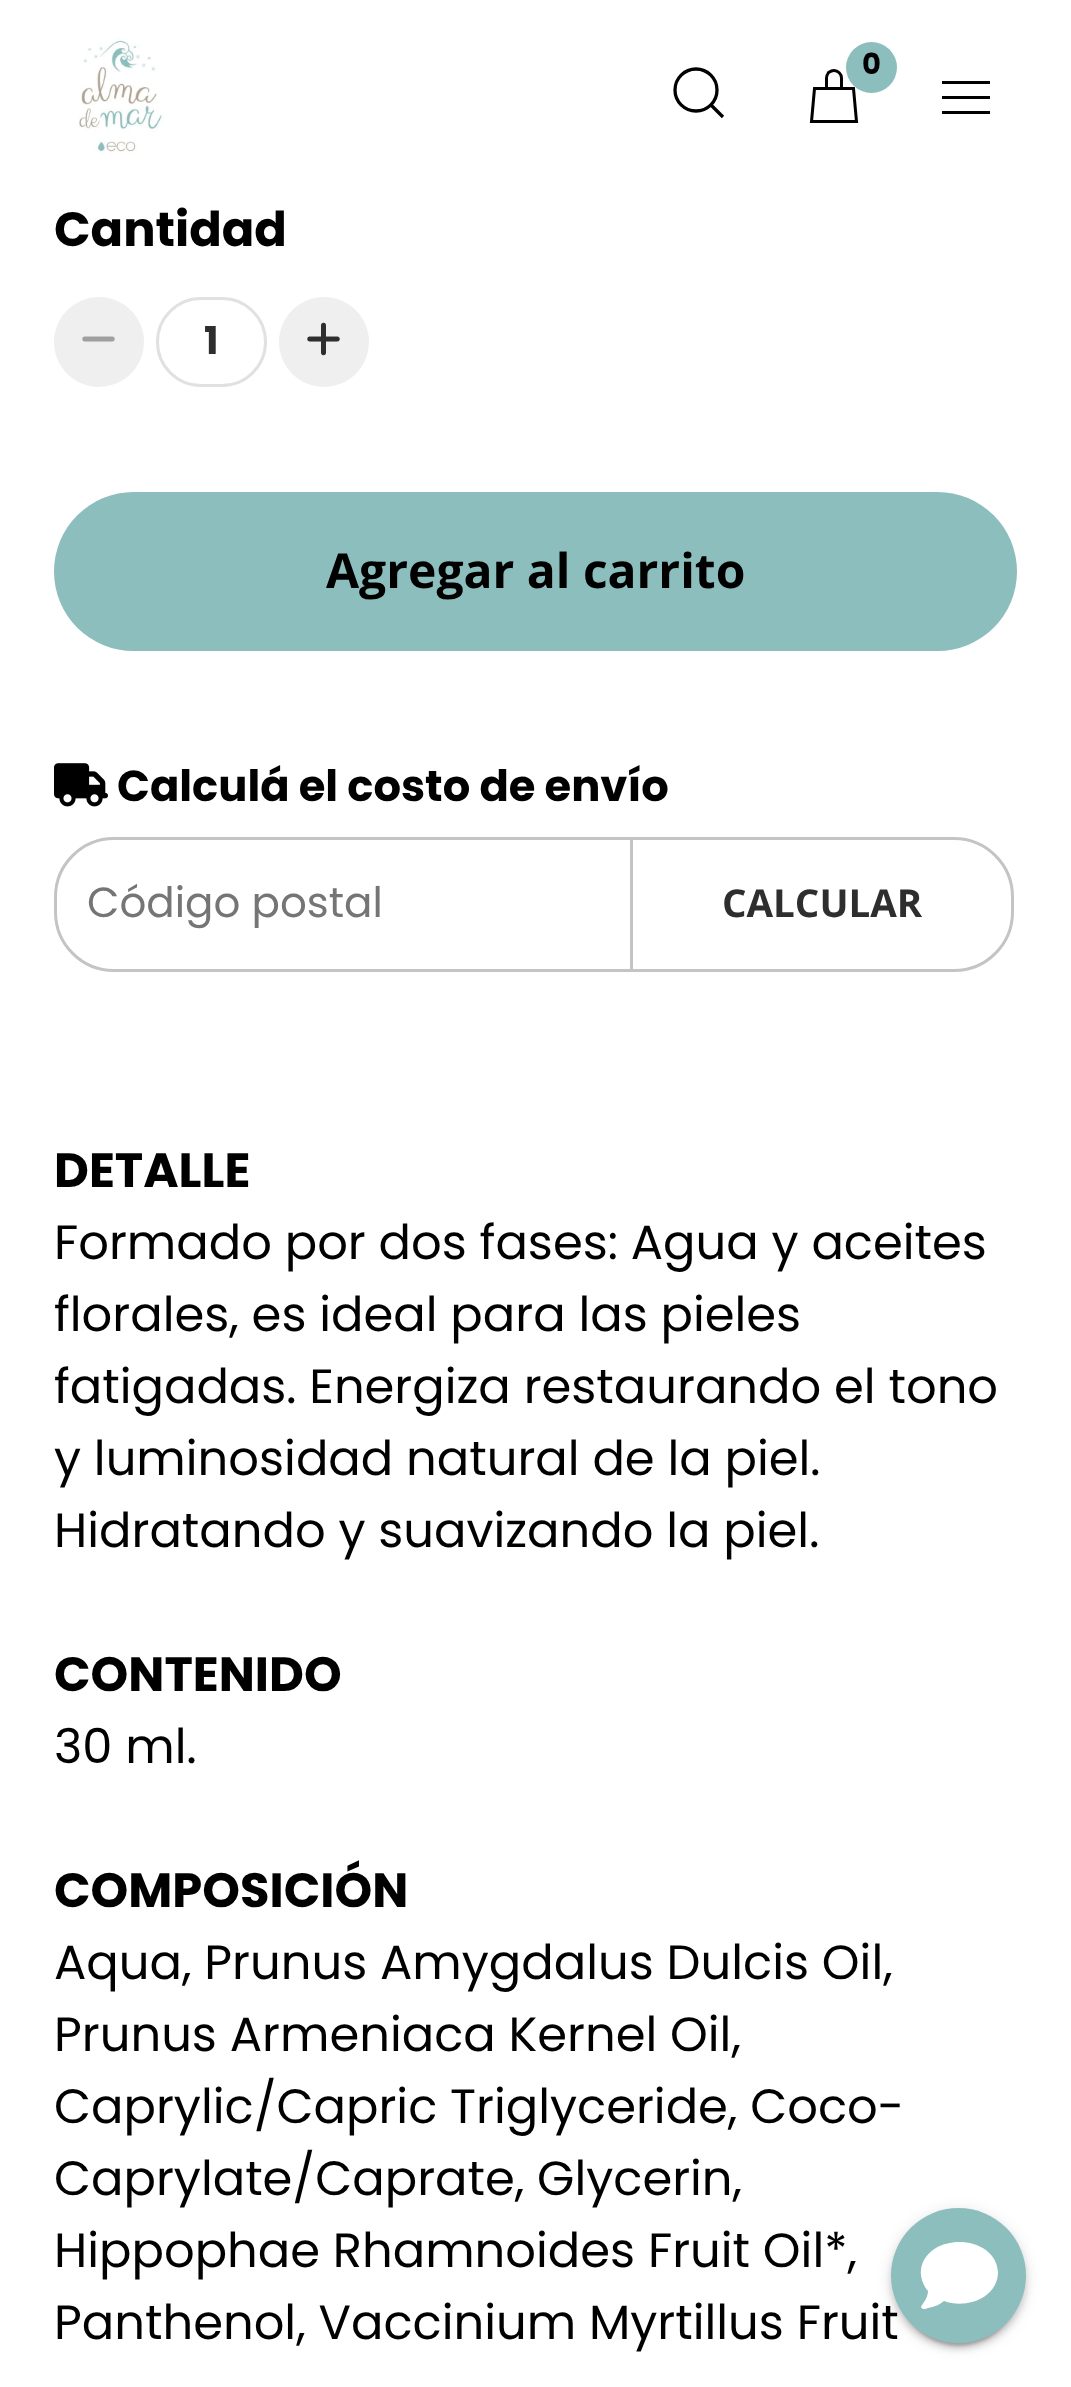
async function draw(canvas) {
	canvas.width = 1071;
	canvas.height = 2387;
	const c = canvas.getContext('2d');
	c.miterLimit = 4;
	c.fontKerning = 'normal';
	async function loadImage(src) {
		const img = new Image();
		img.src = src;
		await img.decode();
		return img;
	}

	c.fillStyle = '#fff';
	c.fillRect(0, 0, 1071, 2387);
	c.drawImage(await loadImage('img1.png'), 78, 38, 87, 118);
	c.beginPath();
	c.moveTo(826.5, 88.5);
	c.lineTo(826.5, 78);
	c.bezierCurveTo(826.5, 76, 827.5, 74, 828.5, 72.5);
	c.bezierCurveTo(830, 71.5, 832, 70.5, 834, 70.5);
	c.bezierCurveTo(838, 70.5, 841.5, 74, 841.5, 78);
	c.lineTo(841.5, 88.5);
	c.moveTo(853.5, 88.5);
	c.lineTo(814.5, 88.5);
	c.lineTo(811.5, 121.5);
	c.lineTo(856.5, 121.5);
	c.closePath();
	c.strokeStyle = '#000';
	c.lineWidth = 3;
	c.stroke();
	c.fillStyle = '#8cbebd';
	c.beginPath();
	c.arc(871.5, 67.5, 25.5, 0, 2 * Math.PI);
	c.fill();
	c.font = 'bold 29px Poppins';
	c.fillStyle = '#000';
	c.fillText('0', 862, 74);
	c.beginPath();
	c.arc(696, 90, 21, 0, 2 * Math.PI);
	c.lineWidth = 3.3;
	c.stroke();
	c.beginPath();
	c.moveTo(711, 105);
	c.lineTo(723, 117);
	c.closePath();
	c.stroke();
	for (const [x, y, w, h, color] of [
		[942, 81, 48, 3, '#000'],
		[942, 96, 48, 3, '#000'],
		[942, 111, 48, 3, '#000'],
	]) {
		c.fillStyle = color;
		c.fillRect(x, y, w, h);
	}
	c.font = 'bold 48px Poppins';
	c.fillText('Cantidad', 54, 246);
	c.fillStyle = '#efefef';
	c.beginPath();
	c.arc(99, 342, 45, 0, 2 * Math.PI);
	c.fill();
	c.drawImage(await loadImage('img2.png'), 82, 336, 33, 6);
	c.beginPath();
	c.roundRect(157.5, 298.5, 108, 87, 43.5);
	c.strokeStyle = '#e1e1e1';
	c.lineWidth = 3;
	c.stroke();
	c.font = 'bold 38.5px Poppins';
	c.fillStyle = '#2e2e2e';
	c.fillText('1', 204, 354);
	c.fillStyle = '#efefef';
	c.beginPath();
	c.arc(324, 342, 45, 0, 2 * Math.PI);
	c.fill();
	c.drawImage(await loadImage('img3.png'), 307, 322, 33, 34);
	c.fillStyle = '#8cbebd';
	c.beginPath();
	c.roundRect(54, 492, 963, 159, 79.5);
	c.fill();
	c.font = 'bold 48px Open Sans';
	c.fillStyle = '#000';
	c.fillText('Agregar al carrito', 326, 588);
	c.drawImage(await loadImage('img4.png'), 54, 763, 54, 44);
	c.font = 'bold 43.25px Poppins';
	c.fillText('Calculá el costo de envío', 117, 801);
	c.beginPath();
	c.roundRect(55.5, 838.5, 576, 132, [58.5, 0, 0, 58.5]);
	c.strokeStyle = '#c4c4c4';
	c.stroke();
	c.font = '42px Poppins';
	c.fillStyle = '#757575';
	c.fillText('Código postal', 87, 917);
	c.fillStyle = '#fff';
	c.beginPath();
	c.roundRect(631.5, 838.5, 381, 132, [0, 58.5, 58.5, 0]);
	c.fill();
	c.stroke();
	c.font = 'bold 38.5px Open Sans';
	c.fillStyle = '#2e2e2e';
	c.fillText('CALCULAR', 722, 917);
	c.font = 'bold 48px Poppins';
	c.fillStyle = '#000';
	c.fillText('DETALLE', 54, 1187);
	c.font = '48px Poppins';
	for (const [text, x, y] of [
		['Formado por dos fases: Agua y aceites', 54, 1259],
		['florales, es ideal para las pieles', 54, 1331],
		['fatigadas. Energiza restaurando el tono', 54, 1403],
		['y luminosidad natural de la piel.', 54, 1475],
		['Hidratando y suavizando la piel.', 54, 1547],
	]) {
		c.fillText(text, x, y);
	}
	c.font = 'bold 48px Poppins';
	c.fillText('CONTENIDO', 54, 1691);
	c.font = '48px Poppins';
	c.fillText('30 ml.', 54, 1763);
	c.font = 'bold 48px Poppins';
	c.fillText('COMPOSICIÓN', 54, 1907);
	c.font = '48px Poppins';
	for (const [text, x, y] of [
		['Aqua, Prunus Amygdalus Dulcis Oil,', 54, 1979],
		['Prunus Armeniaca Kernel Oil,', 54, 2051],
		['Caprylic/Capric Triglyceride, Coco-', 54, 2123],
		['Caprylate/Caprate, Glycerin,', 54, 2195],
		['Hippophae Rhamnoides Fruit Oil*,', 54, 2267],
		['Panthenol, Vaccinium Myrtillus Fruit', 54, 2339],
	]) {
		c.fillText(text, x, y);
	}
	c.fillStyle = '#00000033';
	c.filter = 'blur(1.5px)';
	c.beginPath();
	c.roundRect(897, 2223, 123, 123, 61.5);
	c.fill();
	c.filter = 'none';
	c.fillStyle = '#0000001f';
	c.filter = 'blur(7.5px)';
	c.beginPath();
	c.roundRect(891, 2211, 135, 135, 67.5);
	c.fill();
	c.filter = 'none';
	c.fillStyle = '#00000024';
	c.filter = 'blur(3px)';
	c.beginPath();
	c.roundRect(891, 2214, 135, 135, 67.5);
	c.fill();
	c.filter = 'none';
	c.fillStyle = '#8cbebd';
	c.beginPath();
	c.arc(958.5, 2275.5, 67.5, 0, 2 * Math.PI);
	c.fill();
	c.fillStyle = '#fff';
	c.beginPath();
	c.moveTo(998, 2273);
	c.bezierCurveTo(997, 2299, 965, 2309, 944, 2301);
	c.bezierCurveTo(939, 2305, 934, 2307, 928, 2308);
	c.bezierCurveTo(926, 2309, 922, 2310, 921, 2307);
	c.lineTo(922, 2305);
	c.bezierCurveTo(925, 2301, 928, 2296, 928, 2291);
	c.bezierCurveTo(923, 2285, 920, 2277, 921, 2269);
	c.bezierCurveTo(928, 2231, 997, 2234, 998, 2273);
	c.closePath();
	c.fill();
}

draw(document.querySelector('canvas'));
